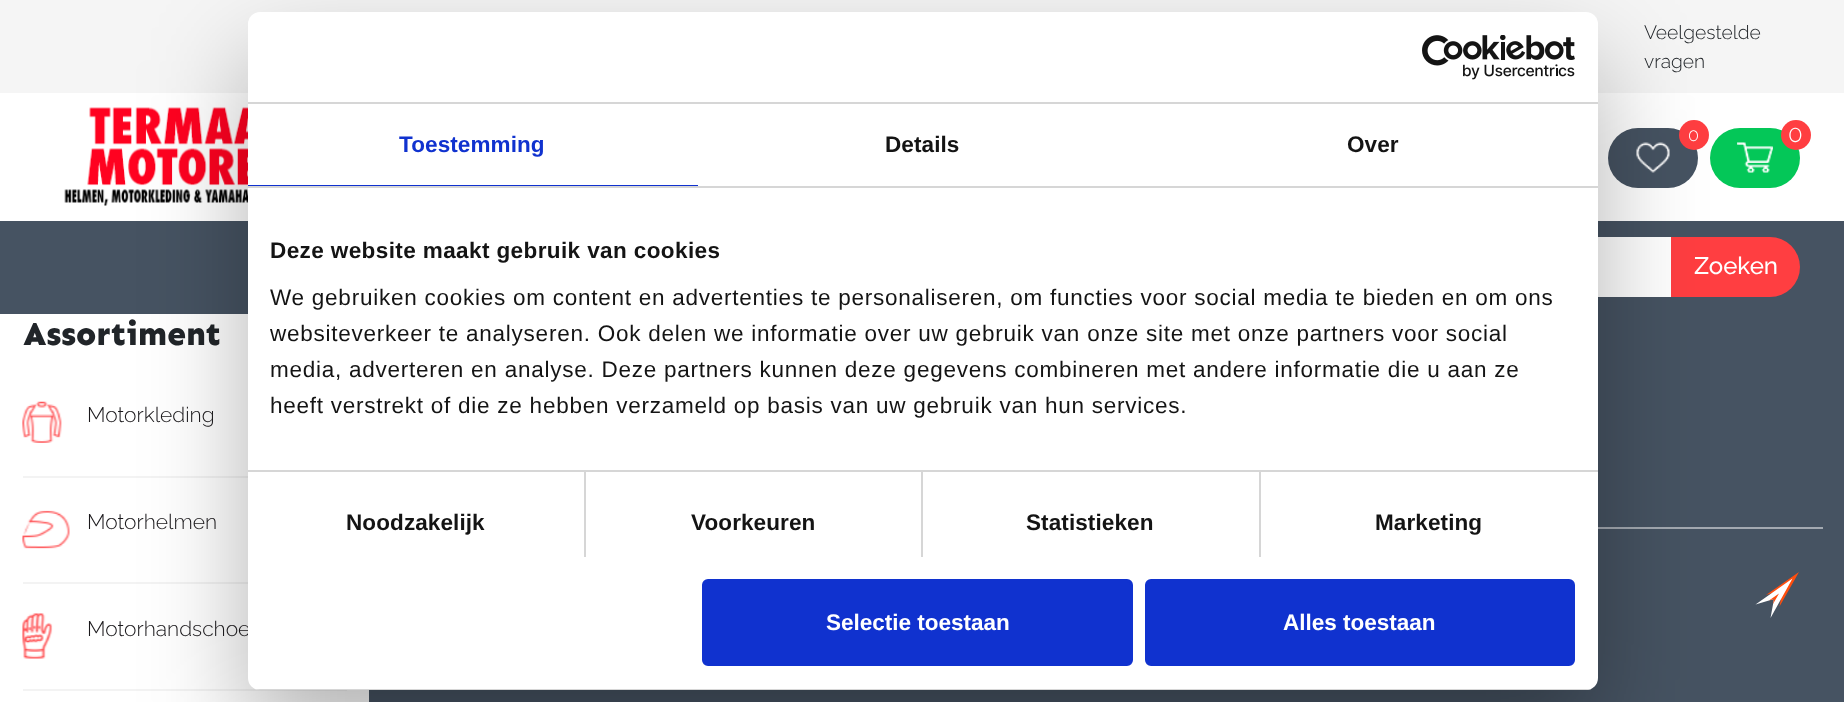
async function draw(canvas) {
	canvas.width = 1844;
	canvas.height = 702;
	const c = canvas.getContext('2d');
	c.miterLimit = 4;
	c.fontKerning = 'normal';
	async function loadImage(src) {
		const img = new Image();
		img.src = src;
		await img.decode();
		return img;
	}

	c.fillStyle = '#465362';
	c.fillRect(0, 0, 1844, 702);
	c.fillStyle = '#fff';
	c.fillRect(0, 314, 369, 388);
	c.font = '800 33px Sen';
	c.fillStyle = '#212529';
	c.fillText('Assortiment', 23, 345);
	c.fillStyle = '#f3f3f3';
	c.fillRect(23, 476, 225, 2);
	c.drawImage(await loadImage('img1.png'), 22, 401, 40, 42);
	c.font = '300 21px Raleway';
	c.fillStyle = '#1a181b';
	c.fillText('Motorkleding', 87, 422);
	c.fillStyle = '#f3f3f3';
	c.fillRect(23, 582, 225, 2);
	c.drawImage(await loadImage('img2.png'), 22, 510, 48, 39);
	c.fillStyle = '#1a181b';
	c.fillText('Motorhelmen', 87, 529);
	c.fillStyle = '#f3f3f3';
	c.fillRect(23, 689, 324, 2);
	c.drawImage(await loadImage('img3.png'), 22, 613, 31, 46);
	c.fillStyle = '#1a181b';
	c.fillText('Motorhandschoe', 87, 636);
	c.fillStyle = '#fff';
	c.fillRect(0, 93, 1844, 128);
	c.fillStyle = '#f5f5f5';
	c.fillRect(0, 0, 1844, 93);
	c.drawImage(await loadImage('img5.png'), 64, 107, 184, 99);
	c.fillStyle = '#465362';
	c.beginPath();
	c.roundRect(1608, 128, 90, 60, 30);
	c.fill();
	c.fillStyle = '#ff3e41';
	c.beginPath();
	c.arc(1694, 135, 15, 0, 2 * Math.PI);
	c.fill();
	c.drawImage(await loadImage('img6.png'), 1636, 142, 34, 31);
	c.fillStyle = '#04c758';
	c.beginPath();
	c.roundRect(1710, 128, 90, 60, 30);
	c.fill();
	c.drawImage(await loadImage('img7.png'), 1737, 142, 36, 31);
	c.fillStyle = '#fff';
	c.fillRect(1598, 237, 73, 60);
	c.fillStyle = '#ff3e41';
	c.beginPath();
	c.roundRect(1671, 237, 129, 60, [0, 30, 30, 0]);
	c.fill();
	c.fillStyle = '#a3a9b1';
	c.fillRect(1598, 527, 225, 2);
	c.fillStyle = '#0000004d';
	c.filter = 'blur(51px)';
	c.beginPath();
	c.roundRect(248, 60, 1350, 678, 12);
	c.fill();
	c.filter = 'none';
	c.fillStyle = '#fff';
	c.beginPath();
	c.roundRect(248, 12, 1350, 678, 12);
	c.fill();
	c.fillStyle = '#d6d6d6';
	c.fillRect(248, 102, 1350, 2);
	c.drawImage(await loadImage('img4.png'), 1422, 35, 153, 45);
	c.fillRect(248, 186, 1350, 2);
	c.fillStyle = '#1032cf';
	c.fillRect(248, 185, 450, 1);
	c.letterSpacing = '0.1px';
	c.font = 'bold 22.5px Liberation Sans';
	c.fillText('Toestemming', 399, 152);
	c.fillStyle = '#141414';
	c.fillText('Details', 885, 152);
	c.fillText('Over', 1347, 152);
	for (const [x, y, w, h, color] of [
		[584, 471, 2, 86, '#d6d6d6'],
		[921, 471, 2, 86, '#d6d6d6'],
		[1259, 471, 2, 86, '#d6d6d6'],
		[248, 470, 1350, 2, '#d6d6d6'],
	]) {
		c.fillStyle = color;
		c.fillRect(x, y, w, h);
	}
	c.letterSpacing = '0.4px';
	c.fillStyle = '#141414';
	c.fillText('Deze website maakt gebruik van cookies', 270, 258);
	c.letterSpacing = '0.75px';
	c.font = '22.5px Liberation Sans';
	for (const [text, x, y] of [
		['We gebruiken cookies om content en advertenties te personaliseren, om functies voor social media te bieden en om ons', 270, 305],
		['websiteverkeer te analyseren. Ook delen we informatie over uw gebruik van onze site met onze partners voor social', 270, 341],
		['media, adverteren en analyse. Deze partners kunnen deze gegevens combineren met andere informatie die u aan ze', 270, 377],
		['heeft verstrekt of die ze hebben verzameld op basis van uw gebruik van hun services.', 270, 413],
	]) {
		c.fillText(text, x, y);
	}
	c.letterSpacing = '0.1px';
	c.font = 'bold 22.5px Liberation Sans';
	for (const [text, x, y] of [
		['Noodzakelijk', 346, 530],
		['Voorkeuren', 691, 530],
		['Statistieken', 1026, 530],
		['Marketing', 1375, 530],
	]) {
		c.fillText(text, x, y);
	}
	c.save();
	c.beginPath();
	c.roundRect(248, 12, 1350, 678, 12);
	c.clip();
	c.fillStyle = '#d6d6d6';
	c.fillRect(248, 689, 1350, 1);
	c.restore();
	c.fillStyle = '#1032cf';
	c.beginPath();
	c.roundRect(703.5, 580.5, 428, 84, 4.5);
	c.fill();
	c.strokeStyle = '#1032cf';
	c.lineWidth = 3;
	c.stroke();
	c.letterSpacing = '0px';
	c.fillStyle = '#fff';
	c.fillText('Selectie toestaan', 826, 630);
	c.fillStyle = '#1032cf';
	c.beginPath();
	c.roundRect(1146.5, 580.5, 427, 84, 4.5);
	c.fill();
	c.stroke();
	c.fillStyle = '#fff';
	c.fillText('Alles toestaan', 1283, 630);
	c.font = '300 19.25px Raleway';
	c.fillStyle = '#212529';
	c.fillText('Veelgestelde', 1644, 39);
	c.fillText('vragen', 1644, 68);
	c.font = '300 18px Raleway';
	c.fillStyle = '#fff';
	c.fillText('0', 1688, 141);
	c.fillStyle = '#ff3e41';
	c.beginPath();
	c.arc(1796, 135, 15, 0, 2 * Math.PI);
	c.fill();
	c.font = '300 24px Raleway';
	c.fillStyle = '#fff';
	c.fillText('0', 1788, 142);
	c.font = '500 24px Raleway';
	c.fillText('Zoeken', 1694, 274);
	c.fillStyle = '#ff4e0e';
	c.beginPath();
	c.moveTo(1799, 572);
	c.lineTo(1766, 595);
	c.lineTo(1782.5, 590);
	c.lineTo(1779.5, 606.5);
	c.closePath();
	c.fill();
	c.fillStyle = '#fff';
	c.beginPath();
	c.moveTo(1755.5, 604.5);
	c.lineTo(1792.5, 578.5);
	c.lineTo(1770.5, 618);
	c.lineTo(1774, 599);
	c.closePath();
	c.fill();
	c.fillStyle = '#ff4e0e';
	c.beginPath();
	c.moveTo(1769, 600.5);
	c.lineTo(1779, 593.5);
	c.lineTo(1773, 604);
	c.lineTo(1774, 599);
	c.closePath();
	c.fill();
}

draw(document.querySelector('canvas'));
